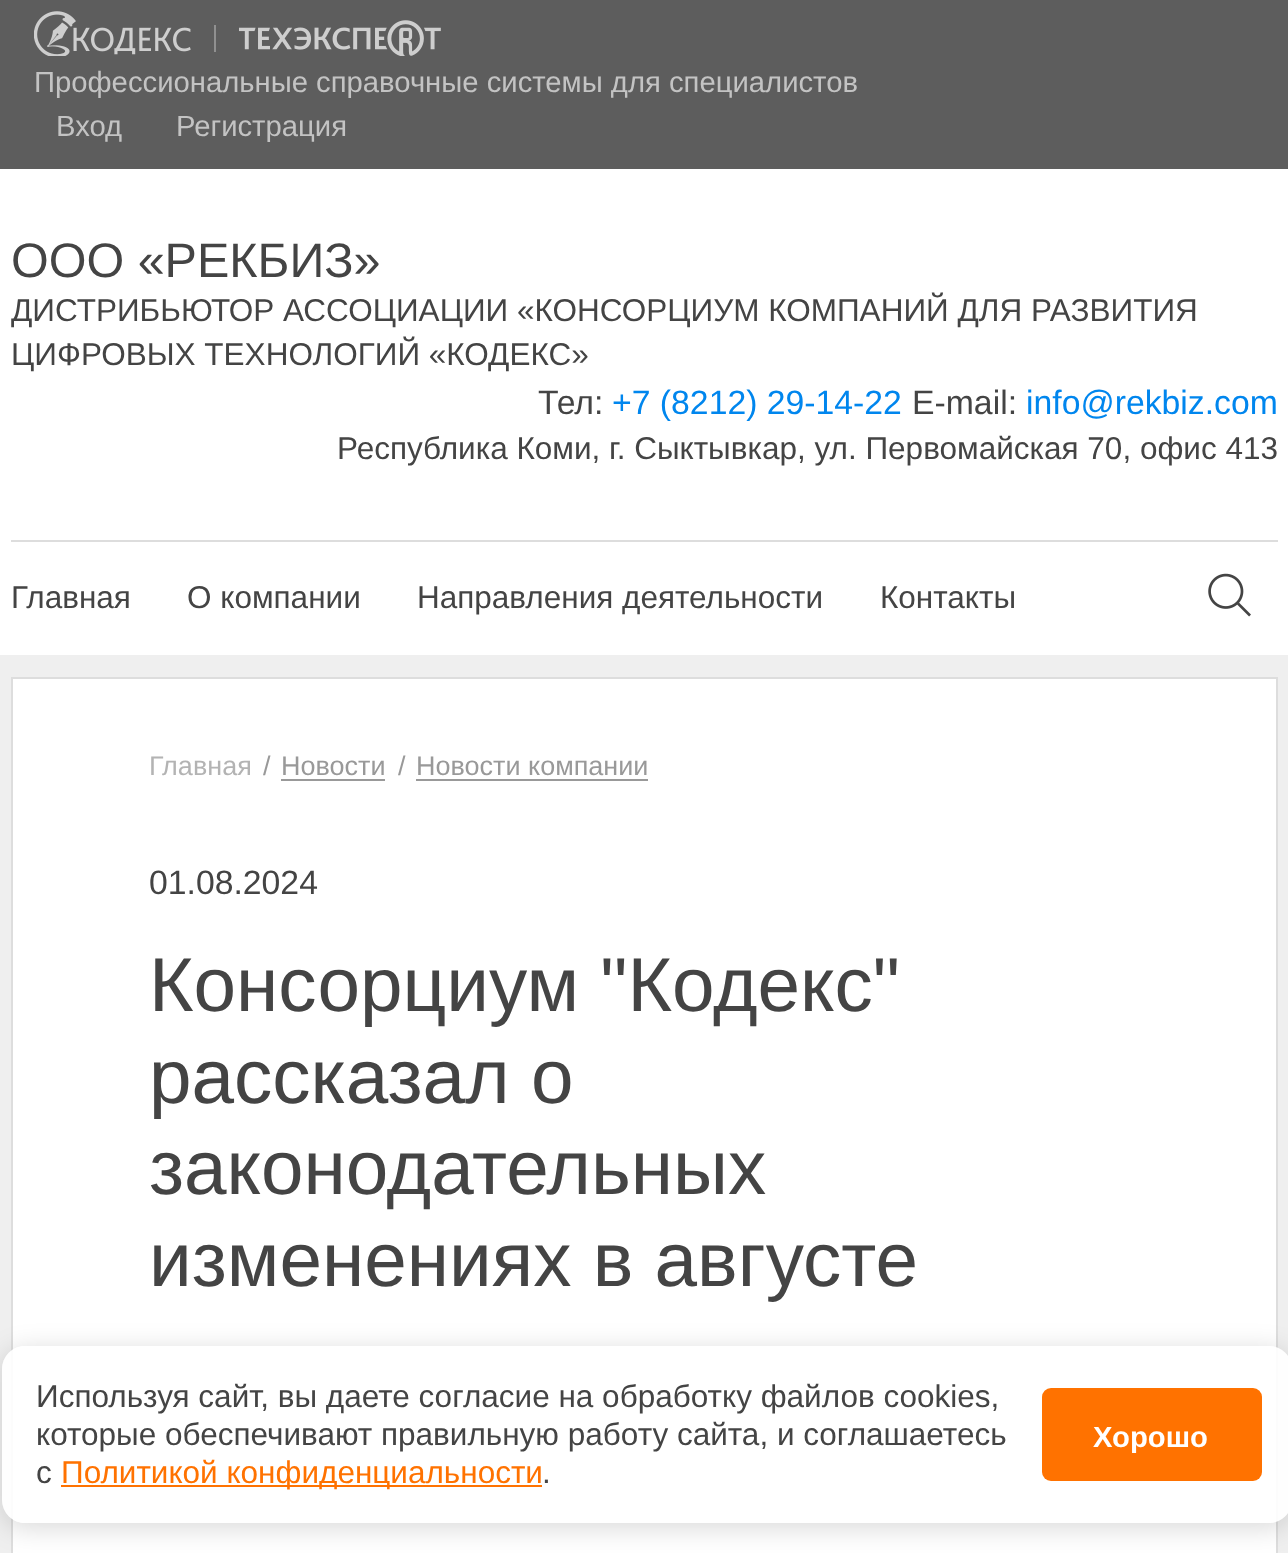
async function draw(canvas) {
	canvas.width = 1288;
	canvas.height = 1553;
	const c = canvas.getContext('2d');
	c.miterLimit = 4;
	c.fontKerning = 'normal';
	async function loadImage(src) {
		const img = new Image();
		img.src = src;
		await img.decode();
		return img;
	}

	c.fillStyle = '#efefef';
	c.fillRect(0, 0, 1288, 1553);
	c.fillStyle = '#5d5d5d';
	c.fillRect(0, 0, 1288, 169);
	c.drawImage(await loadImage('img1.png'), 34, 11, 157, 45);
	c.fillStyle = '#909090';
	c.fillRect(214, 25, 2, 27);
	c.drawImage(await loadImage('img2.png'), 239, 20, 202, 36);
	c.font = '29.25px Liberation Sans';
	c.fillStyle = '#c3c3c3';
	for (const [text, x, y] of [
		['Профессиональные справочные системы для специалистов', 34, 92],
		['Вход', 56, 136],
		['Регистрация', 176, 136],
	]) {
		c.fillText(text, x, y);
	}
	c.fillStyle = '#fff';
	c.fillRect(0, 169, 1288, 486);
	c.font = '48.5px Liberation Sans';
	c.fillStyle = '#444';
	c.fillText('ООО «РЕКБИЗ»', 11, 277);
	c.font = '31.5px Liberation Sans';
	c.fillText('ДИСТРИБЬЮТОР АССОЦИАЦИИ «КОНСОРЦИУМ КОМПАНИЙ ДЛЯ РАЗВИТИЯ', 11, 321);
	c.fillText('ЦИФРОВЫХ ТЕХНОЛОГИЙ «КОДЕКС»', 11, 365);
	c.font = '33.75px Liberation Sans';
	c.fillText('Тел:', 538, 414);
	c.fillStyle = '#0086ee';
	c.fillText('+7 (8212) 29-14-22', 612, 414);
	c.fillStyle = '#444';
	c.fillText('E-mail:', 912, 414);
	c.fillStyle = '#0086ee';
	c.fillText('info@rekbiz.com', 1026, 414);
	c.font = '31.5px Liberation Sans';
	c.fillStyle = '#444';
	c.fillText('Республика Коми, г. Сыктывкар, ул. Первомайская 70, офис 413', 337, 459);
	c.fillStyle = '#ddd';
	c.fillRect(11, 540, 1267, 2);
	c.fillStyle = '#444';
	for (const [text, x, y] of [
		['Главная', 11, 608],
		['О компании', 187, 608],
		['Направления деятельности', 417, 608],
		['Контакты', 880, 608],
	]) {
		c.fillText(text, x, y);
	}
	c.drawImage(await loadImage('img3.png'), 1208, 573, 43, 44);
	c.fillStyle = '#fff';
	c.beginPath();
	c.rect(12, 678, 1265, 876);
	c.fill();
	c.strokeStyle = '#ddd';
	c.lineWidth = 2;
	c.stroke();
	c.font = '27px Liberation Sans';
	c.fillStyle = '#b3b3b3';
	c.fillText('Главная', 149, 775);
	c.fillStyle = '#999';
	c.fillText('/', 263, 775);
	c.fillText('Новости', 281, 775);
	c.fillRect(281, 779, 104, 2);
	c.fillText('/', 398, 775);
	c.fillText('Новости компании', 416, 775);
	c.fillRect(416, 779, 232, 2);
	c.font = '33.75px Liberation Sans';
	c.fillStyle = '#444';
	c.fillText('01.08.2024', 149, 894);
	c.font = '76.5px Liberation Sans';
	for (const [text, x, y] of [
		['Консорциум "Кодекс"', 149, 1011],
		['рассказал о', 149, 1103],
		['законодательных', 149, 1194],
		['изменениях в августе', 149, 1286],
	]) {
		c.fillText(text, x, y);
	}
	c.save();
	c.beginPath();
	c.moveTo(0, 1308);
	c.lineTo(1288, 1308);
	c.lineTo(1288, 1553);
	c.lineTo(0, 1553);
	c.closePath();
	c.moveTo(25, 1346);
	c.lineTo(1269, 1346);
	c.bezierCurveTo(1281.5, 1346, 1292, 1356.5, 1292, 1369);
	c.lineTo(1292, 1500);
	c.bezierCurveTo(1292, 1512.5, 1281.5, 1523, 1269, 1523);
	c.lineTo(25, 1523);
	c.bezierCurveTo(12.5, 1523, 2, 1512.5, 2, 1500);
	c.lineTo(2, 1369);
	c.bezierCurveTo(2, 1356.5, 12.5, 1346, 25, 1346);
	c.closePath();
	c.clip('evenodd');
	c.fillStyle = '#00000026';
	c.filter = 'blur(13.5px)';
	c.beginPath();
	c.roundRect(2, 1350, 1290, 178, 23);
	c.fill();
	c.filter = 'none';
	c.restore();
	c.fillStyle = '#ffffffe6';
	c.beginPath();
	c.roundRect(2, 1346, 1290, 177, 23);
	c.fill();
	c.font = '31.5px Liberation Sans';
	c.fillStyle = '#444';
	for (const [text, x, y] of [
		['Используя сайт, вы даете согласие на обработку файлов сооkiеs,', 36, 1407],
		['которые обеспечивают правильную работу сайта, и соглашаетесь', 36, 1445],
		['с', 36, 1483],
	]) {
		c.fillText(text, x, y);
	}
	c.fillStyle = '#ff7200';
	c.fillRect(61, 1485, 481, 2);
	c.fillText('Политикой конфиденциальности', 61, 1483);
	c.fillStyle = '#444';
	c.fillText('.', 542, 1483);
	c.fillStyle = '#ff7200';
	c.beginPath();
	c.roundRect(1042, 1388, 220, 93, 9);
	c.fill();
	c.font = 'bold 29.25px Liberation Sans';
	c.fillStyle = '#fff';
	c.fillText('Хорошо', 1093, 1447);
}

draw(document.querySelector('canvas'));
